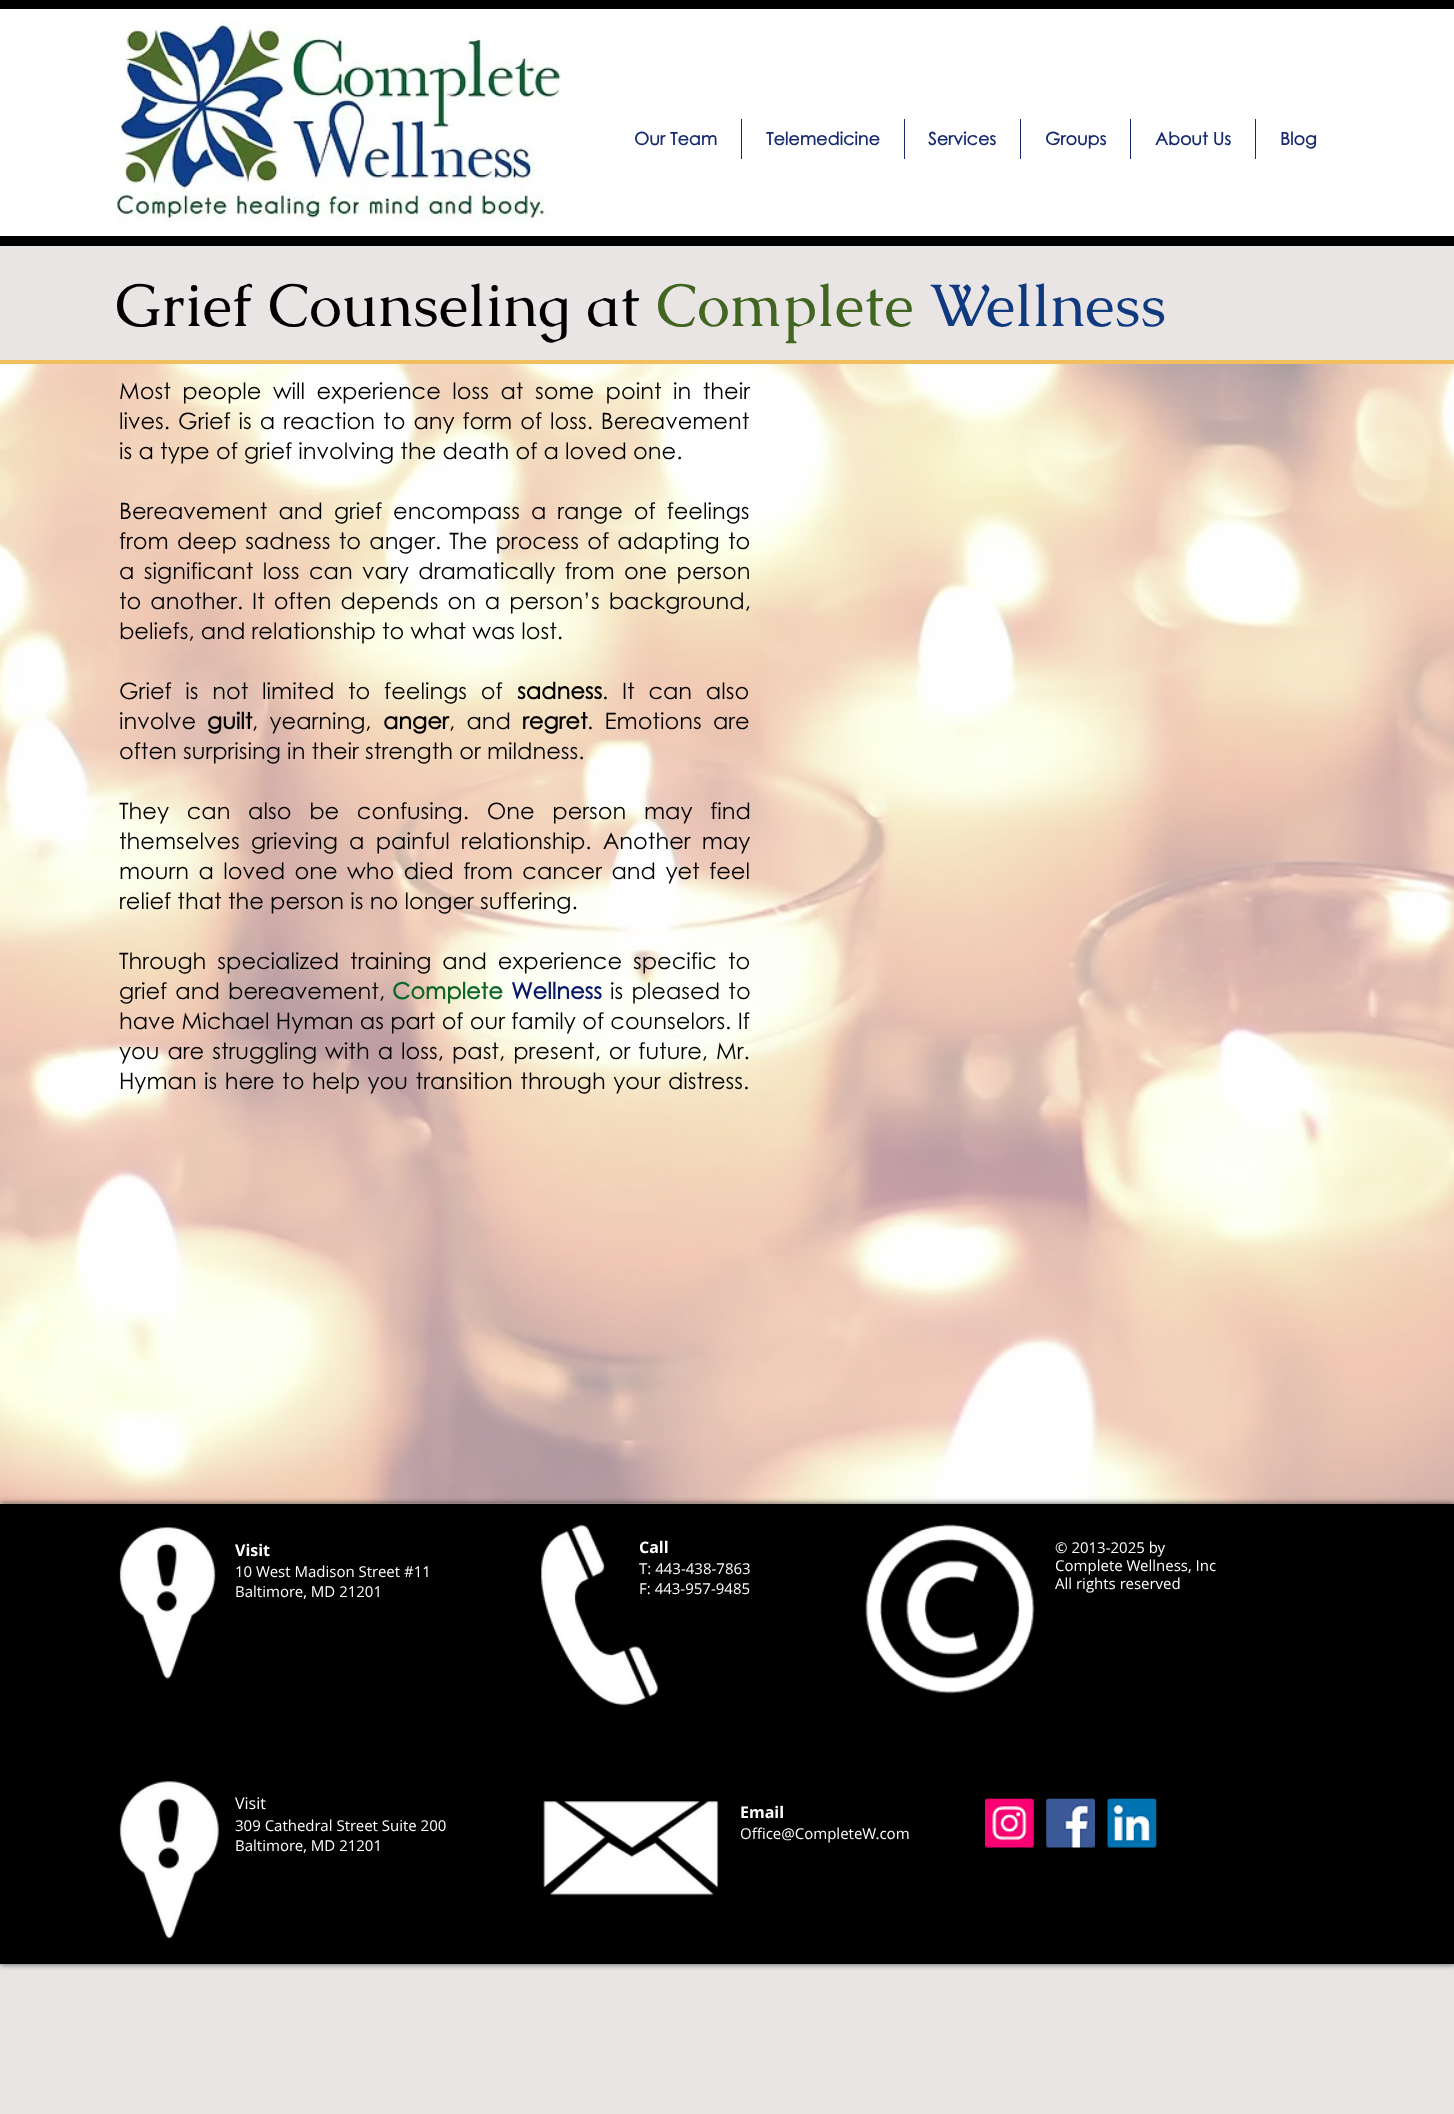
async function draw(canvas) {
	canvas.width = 1454;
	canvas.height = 2114;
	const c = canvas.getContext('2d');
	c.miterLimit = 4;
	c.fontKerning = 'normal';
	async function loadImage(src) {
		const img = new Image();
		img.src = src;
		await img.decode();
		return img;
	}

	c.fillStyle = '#eae5e5';
	c.fillRect(0, 0, 1454, 2114);
	c.fillStyle = '#fff';
	c.fillRect(0, 9, 1454, 227);
	c.fillStyle = '#000';
	c.fillRect(0, 0, 1454, 9);
	c.drawImage(await loadImage('img1.png'), 115, 21, 447, 201);
	c.font = 'bold 17.5px Century Gothic';
	c.fillStyle = '#172a6f';
	c.fillText('Our Team', 634, 145);
	c.fillRect(741, 119, 1, 40);
	c.fillText('Telemedicine', 766, 145);
	c.fillRect(904, 119, 1, 40);
	c.fillText('Services', 928, 145);
	c.fillRect(1020, 119, 1, 40);
	c.fillText('Groups', 1045, 145);
	c.fillRect(1130, 119, 1, 40);
	c.fillText('About Us', 1155, 145);
	c.fillRect(1255, 119, 1, 40);
	c.fillText('Blog', 1280, 145);
	c.fillStyle = '#000';
	c.fillRect(0, 236, 1454, 10);
	c.font = '60px Caudex';
	c.fillText('Grief Counseling at', 115, 326);
	c.fillStyle = '#426622';
	c.fillText('Complete', 656, 326);
	c.fillStyle = '#103a80';
	c.fillText('Wellness', 930, 326);
	c.fillStyle = '#f2bf5e';
	c.fillRect(0, 360, 1454, 4);
	c.fillStyle = '#f7f5f5';
	c.fillRect(0, 1503, 1432, 1);
	c.drawImage(await loadImage('img2.png'), 0, 364, 1454, 1140);
	c.wordSpacing = '5.25px';
	c.font = '22.5px Century Gothic';
	c.fillStyle = '#000';
	c.fillText('Most people will experience loss at some point in their', 119, 399);
	c.wordSpacing = '1.75px';
	c.fillText('lives. Grief is a reaction to any form of loss. Bereavement', 119, 429);
	c.wordSpacing = '0px';
	c.fillText('is a type of grief involving the death of a loved one.', 119, 459);
	c.wordSpacing = '4.75px';
	c.fillText('Bereavement and grief encompass a range of feelings', 119, 519);
	c.wordSpacing = '2px';
	c.fillText('from deep sadness to anger. The process of adapting to', 119, 549);
	c.wordSpacing = '3.25px';
	c.fillText('a significant loss can vary dramatically from one person', 119, 579);
	c.wordSpacing = '2.75px';
	c.fillText('to another. It often depends on a person’s background,', 119, 609);
	c.wordSpacing = '0px';
	c.fillText('beliefs, and relationship to what was lost.', 119, 639);
	c.wordSpacing = '7.5px';
	c.fillText('Grief is not limited', 119, 699);
	c.fillText('to feelings of', 348, 699);
	c.wordSpacing = '0px';
	c.font = 'bold 22.5px Century Gothic';
	c.fillText('sadness', 517, 699);
	c.wordSpacing = '7.5px';
	c.font = '22.5px Century Gothic';
	c.fillText('. It can also', 602, 699);
	c.wordSpacing = '0px';
	c.fillText('involve', 119, 729);
	c.font = 'bold 22.5px Century Gothic';
	c.fillText('guilt', 207, 729);
	c.wordSpacing = '5px';
	c.font = '22.5px Century Gothic';
	c.fillText(', yearning,', 252, 729);
	c.wordSpacing = '0px';
	c.font = 'bold 22.5px Century Gothic';
	c.fillText('anger', 383, 729);
	c.wordSpacing = '5px';
	c.font = '22.5px Century Gothic';
	c.fillText(', and', 449, 729);
	c.wordSpacing = '0px';
	c.font = 'bold 22.5px Century Gothic';
	c.fillText('regret', 522, 729);
	c.wordSpacing = '5px';
	c.font = '22.5px Century Gothic';
	c.fillText('. Emotions are', 587, 729);
	c.wordSpacing = '0px';
	c.fillText('often surprising in their strength or mildness.', 119, 759);
	c.wordSpacing = '11.5px';
	c.fillText('They can also be confusing. One person may find', 119, 819);
	c.wordSpacing = '5px';
	c.fillText('themselves grieving a painful relationship. Another may', 119, 849);
	c.wordSpacing = '3.25px';
	c.fillText('mourn a loved one who died from cancer and yet feel', 119, 879);
	c.wordSpacing = '0px';
	c.fillText('relief that the person is no longer suffering.', 119, 909);
	c.wordSpacing = '4.75px';
	c.fillText('Through specialized training and experience specific to', 119, 969);
	c.wordSpacing = '2px';
	c.fillText('grief and bereavement,', 119, 999);
	c.wordSpacing = '0px';
	c.font = 'bold 22.5px Century Gothic';
	c.fillStyle = '#0c6626';
	c.fillText('Complete', 392, 999);
	c.fillStyle = '#071866';
	c.fillText('Wellness', 511, 999);
	c.wordSpacing = '2px';
	c.font = '22.5px Century Gothic';
	c.fillStyle = '#000';
	c.fillText('is pleased to', 610, 999);
	c.wordSpacing = '0.1px';
	c.fillText('have Michael Hyman as part of our family of counselors. If', 119, 1029);
	c.wordSpacing = '1.75px';
	c.fillText('you are struggling with a loss, past, present, or future, Mr.', 119, 1059);
	c.wordSpacing = '1.25px';
	c.fillText('Hyman is here to help you transition through your distress.', 119, 1089);
	c.fillStyle = '#000000b3';
	c.filter = 'blur(3px)';
	c.beginPath();
	c.rect(0, 1504, 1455, 460);
	c.fill();
	c.filter = 'none';
	c.fillStyle = '#000';
	c.fillRect(0, 1504, 1454, 460);
	c.drawImage(await loadImage('img3.png'), 119, 1526, 97, 153);
	c.wordSpacing = '0px';
	c.font = 'bold 16px Open Sans';
	c.fillStyle = '#fff';
	c.fillText('Visit', 235, 1556);
	c.font = '15px Open Sans';
	c.fillText('10 West Madison Street #11', 235, 1577);
	c.fillText('Baltimore, MD 21201', 235, 1597);
	c.drawImage(await loadImage('img4.png'), 541, 1524, 118, 182);
	c.font = 'bold 16px Open Sans';
	c.fillText('Call', 639, 1553);
	c.font = '15px Open Sans';
	c.fillText('T: 443-438-7863', 639, 1574);
	c.fillText('F: 443-957-9485', 639, 1594);
	c.drawImage(await loadImage('img5.png'), 865, 1524, 170, 170);
	for (const [text, x, y] of [
		['© 2013-2025 by', 1055, 1553],
		['Complete Wellness, Inc', 1055, 1571],
		['All rights reserved', 1055, 1589],
	]) {
		c.fillText(text, x, y);
	}
	c.drawImage(await loadImage('img6.png'), 119, 1781, 100, 158);
	c.font = '16px Open Sans';
	c.fillText('Visit', 235, 1809);
	c.font = '15px Open Sans';
	c.fillText('309 Cathedral Street Suite 200', 235, 1831);
	c.fillText('Baltimore, MD 21201', 235, 1851);
	c.drawImage(await loadImage('img7.png'), 543, 1801, 176, 95);
	c.font = 'bold 16px Open Sans';
	c.fillText('Email', 740, 1818);
	c.font = '15px Open Sans';
	c.fillText('Office@CompleteW.com', 740, 1839);
	c.drawImage(await loadImage('img8.png'), 985, 1798, 49, 50);
	c.drawImage(await loadImage('img9.png'), 1046, 1798, 49, 50);
	c.drawImage(await loadImage('img10.png'), 1107, 1798, 50, 50);
}

draw(document.querySelector('canvas'));
